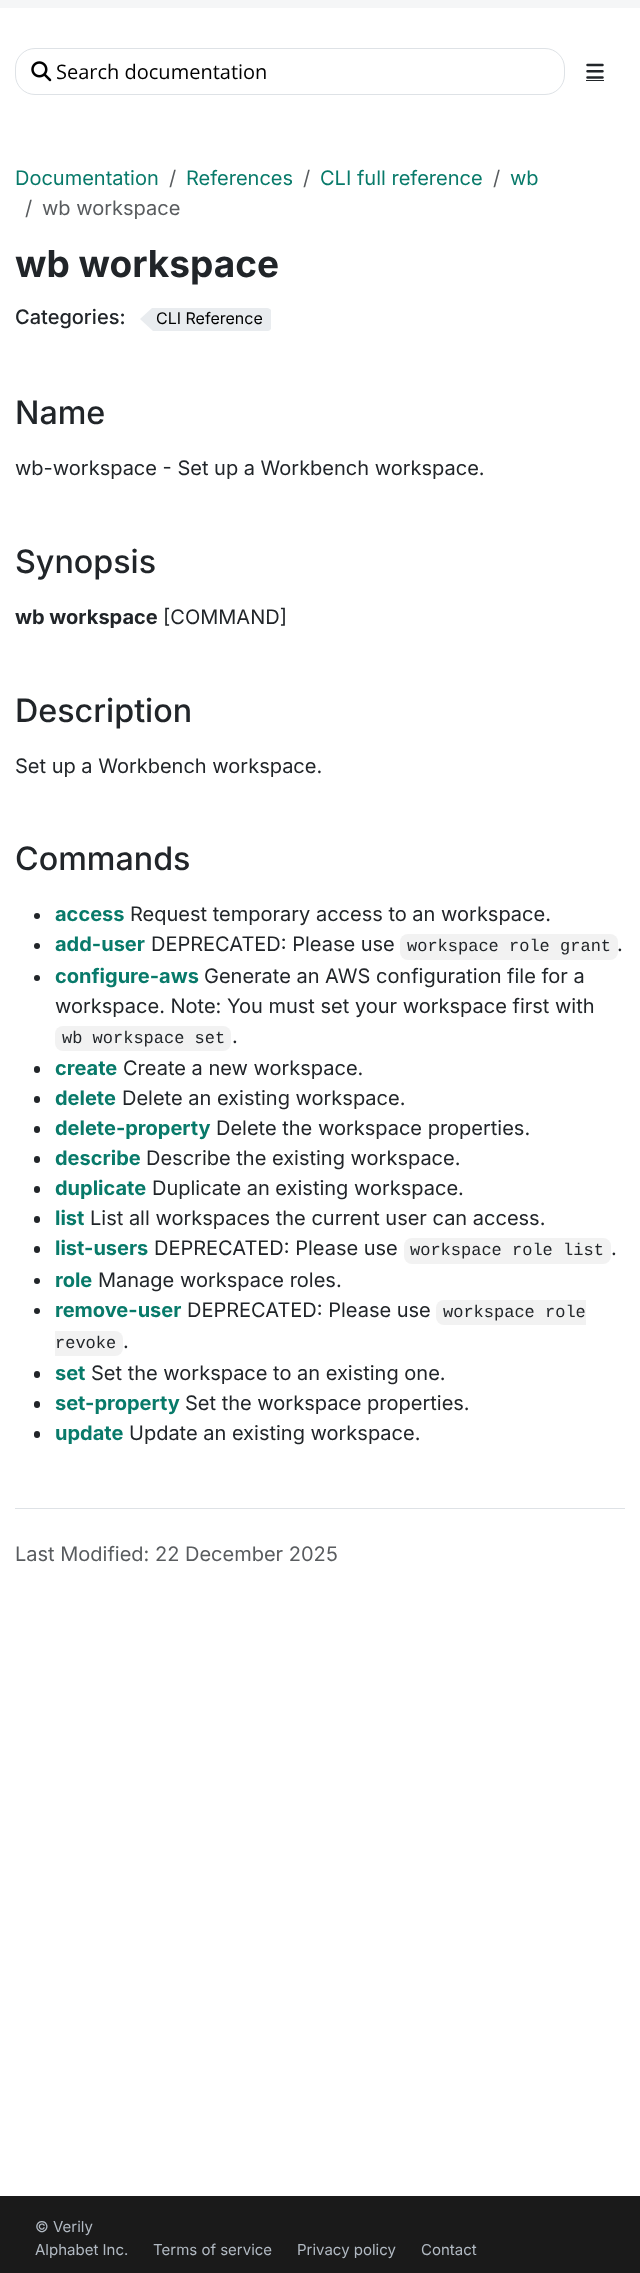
async function draw(canvas) {
	canvas.width = 640;
	canvas.height = 2273;
	const c = canvas.getContext('2d');
	c.miterLimit = 4;
	c.fontKerning = 'normal';
	async function loadImage(src) {
		const img = new Image();
		img.src = src;
		await img.decode();
		return img;
	}

	c.fillStyle = '#fff';
	c.fillRect(0, 0, 640, 2273);
	c.fillStyle = '#f5f6f7';
	c.fillRect(0, 0, 640, 8);
	c.beginPath();
	c.roundRect(15.5, 48.5, 549, 46, 19.5);
	c.strokeStyle = '#dee2e6';
	c.stroke();
	c.drawImage(await loadImage('img1.png'), 31, 61, 21, 21);
	c.font = '20px Open Sans';
	c.fillStyle = '#000';
	c.fillText('Search documentation', 56, 79);
	c.drawImage(await loadImage('img2.png'), 586, 63, 18, 16);
	c.fillStyle = '#212529';
	c.fillRect(586, 80, 18, 1);
	c.font = '20px Inter';
	c.fillStyle = '#087a6a';
	c.fillText('Documentation', 15, 185);
	c.fillStyle = '#595c5f';
	c.fillText('/', 169, 185);
	c.fillStyle = '#087a6a';
	c.fillText('References', 186, 185);
	c.fillStyle = '#595c5f';
	c.fillText('/', 303, 185);
	c.fillStyle = '#087a6a';
	c.fillText('CLI full reference', 320, 185);
	c.fillStyle = '#595c5f';
	c.fillText('/', 493, 185);
	c.fillStyle = '#087a6a';
	c.fillText('wb', 510, 185);
	c.fillStyle = '#595c5f';
	c.fillText('/', 25, 215);
	c.fillText('wb workspace', 42, 215);
	c.font = 'bold 37px Inter';
	c.fillStyle = '#212529';
	c.fillText('wb workspace', 15, 277);
	c.font = '500 20px Inter';
	c.fillText('Categories:', 15, 324);
	c.fillStyle = '#e9ecef';
	c.beginPath();
	c.moveTo(152, 308);
	c.lineTo(267, 308);
	c.bezierCurveTo(269, 308, 270, 309, 271, 310);
	c.lineTo(271, 329);
	c.bezierCurveTo(270, 330, 269, 331, 268, 331);
	c.lineTo(153, 331);
	c.lineTo(140, 319);
	c.closePath();
	c.fill();
	c.font = '16px Inter';
	c.fillStyle = '#000';
	c.fillText('CLI Reference', 156, 324);
	c.font = '500 32.25px Inter';
	c.fillStyle = '#212529';
	c.fillText('Name', 15, 424);
	c.font = '20px Inter';
	c.fillText('wb-workspace - Set up a Workbench workspace.', 15, 475);
	c.font = '500 32.25px Inter';
	c.fillText('Synopsis', 15, 573);
	c.font = 'bold 20px Inter';
	c.fillText('wb workspace', 15, 624);
	c.font = '20px Inter';
	c.fillText('[COMMAND]', 163, 624);
	c.font = '500 32.25px Inter';
	c.fillText('Description', 15, 722);
	c.font = '20px Inter';
	c.fillText('Set up a Workbench workspace.', 15, 773);
	c.font = '500 32.25px Inter';
	c.fillText('Commands', 15, 870);
	c.beginPath();
	c.arc(37, 916, 3, 0, 2 * Math.PI);
	c.fill();
	c.font = 'bold 20px Inter';
	c.fillStyle = '#087a6a';
	c.fillText('access', 55, 921);
	c.font = '20px Inter';
	c.fillStyle = '#212529';
	c.fillText('Request temporary access to an workspace.', 130, 921);
	c.beginPath();
	c.arc(37, 946, 3, 0, 2 * Math.PI);
	c.fill();
	c.font = 'bold 20px Inter';
	c.fillStyle = '#087a6a';
	c.fillText('add-user', 55, 951);
	c.font = '20px Inter';
	c.fillStyle = '#212529';
	c.fillText('DEPRECATED: Please use', 151, 951);
	c.fillStyle = '#f2f2f2';
	c.beginPath();
	c.roundRect(400, 934, 218, 26, 8);
	c.fill();
	c.font = '17px Liberation Mono';
	c.fillStyle = '#212529';
	c.fillText('workspace role grant', 407, 951);
	c.font = '20px Inter';
	c.fillText('.', 617, 951);
	c.beginPath();
	c.arc(37, 978, 3, 0, 2 * Math.PI);
	c.fill();
	c.font = 'bold 20px Inter';
	c.fillStyle = '#087a6a';
	c.fillText('configure-aws', 55, 983);
	c.font = '20px Inter';
	c.fillStyle = '#212529';
	c.fillText('Generate an AWS configuration file for a', 204, 983);
	c.fillText('workspace. Note: You must set your workspace first with', 55, 1013);
	c.fillStyle = '#f2f2f2';
	c.beginPath();
	c.roundRect(55, 1026, 176, 25, 8);
	c.fill();
	c.font = '17px Liberation Mono';
	c.fillStyle = '#212529';
	c.fillText('wb workspace set', 62, 1043);
	c.font = '20px Inter';
	c.fillText('.', 232, 1043);
	c.beginPath();
	c.roundRect(34, 1066, 6, 7, 3);
	c.fill();
	c.font = 'bold 20px Inter';
	c.fillStyle = '#087a6a';
	c.fillText('create', 55, 1075);
	c.font = '20px Inter';
	c.fillStyle = '#212529';
	c.fillText('Create a new workspace.', 123, 1075);
	c.beginPath();
	c.roundRect(34, 1096, 6, 7, 3);
	c.fill();
	c.font = 'bold 20px Inter';
	c.fillStyle = '#087a6a';
	c.fillText('delete', 55, 1105);
	c.font = '20px Inter';
	c.fillStyle = '#212529';
	c.fillText('Delete an existing workspace.', 122, 1105);
	c.beginPath();
	c.roundRect(34, 1126, 6, 7, 3);
	c.fill();
	c.font = 'bold 20px Inter';
	c.fillStyle = '#087a6a';
	c.fillText('delete-property', 55, 1135);
	c.font = '20px Inter';
	c.fillStyle = '#212529';
	c.fillText('Delete the workspace properties.', 216, 1135);
	c.beginPath();
	c.roundRect(34, 1156, 6, 7, 3);
	c.fill();
	c.font = 'bold 20px Inter';
	c.fillStyle = '#087a6a';
	c.fillText('describe', 55, 1165);
	c.font = '20px Inter';
	c.fillStyle = '#212529';
	c.fillText('Describe the existing workspace.', 146, 1165);
	c.beginPath();
	c.roundRect(34, 1186, 6, 7, 3);
	c.fill();
	c.font = 'bold 20px Inter';
	c.fillStyle = '#087a6a';
	c.fillText('duplicate', 55, 1195);
	c.font = '20px Inter';
	c.fillStyle = '#212529';
	c.fillText('Duplicate an existing workspace.', 152, 1195);
	c.beginPath();
	c.roundRect(34, 1216, 6, 7, 3);
	c.fill();
	c.font = 'bold 20px Inter';
	c.fillStyle = '#087a6a';
	c.fillText('list', 55, 1225);
	c.font = '20px Inter';
	c.fillStyle = '#212529';
	c.fillText('List all workspaces the current user can access.', 90, 1225);
	c.beginPath();
	c.roundRect(34, 1246, 6, 7, 3);
	c.fill();
	c.font = 'bold 20px Inter';
	c.fillStyle = '#087a6a';
	c.fillText('list-users', 55, 1255);
	c.font = '20px Inter';
	c.fillStyle = '#212529';
	c.fillText('DEPRECATED: Please use', 154, 1255);
	c.fillStyle = '#f2f2f2';
	c.beginPath();
	c.roundRect(404, 1238, 207, 26, 8);
	c.fill();
	c.font = '17px Liberation Mono';
	c.fillStyle = '#212529';
	c.fillText('workspace role list', 410, 1255);
	c.font = '20px Inter';
	c.fillText('.', 611, 1255);
	c.beginPath();
	c.arc(37, 1281, 3, 0, 2 * Math.PI);
	c.fill();
	c.font = 'bold 20px Inter';
	c.fillStyle = '#087a6a';
	c.fillText('role', 55, 1287);
	c.font = '20px Inter';
	c.fillStyle = '#212529';
	c.fillText('Manage workspace roles.', 98, 1287);
	c.beginPath();
	c.arc(37, 1311, 3, 0, 2 * Math.PI);
	c.fill();
	c.font = 'bold 20px Inter';
	c.fillStyle = '#087a6a';
	c.fillText('remove-user', 55, 1317);
	c.font = '20px Inter';
	c.fillStyle = '#212529';
	c.fillText('DEPRECATED: Please use', 187, 1317);
	c.fillStyle = '#f2f2f2';
	c.beginPath();
	c.roundRect(436, 1300, 150, 25, [8, 0, 0, 8]);
	c.fill();
	c.font = '17px Liberation Mono';
	c.fillStyle = '#212529';
	c.fillText('workspace role', 443, 1317);
	c.fillStyle = '#f2f2f2';
	c.beginPath();
	c.roundRect(55, 1331, 68, 25, [0, 8, 8, 0]);
	c.fill();
	c.fillStyle = '#212529';
	c.fillText('revoke', 55, 1348);
	c.font = '20px Inter';
	c.fillText('.', 123, 1348);
	c.beginPath();
	c.roundRect(34, 1371, 6, 7, 3);
	c.fill();
	c.font = 'bold 20px Inter';
	c.fillStyle = '#087a6a';
	c.fillText('set', 55, 1380);
	c.font = '20px Inter';
	c.fillStyle = '#212529';
	c.fillText('Set the workspace to an existing one.', 91, 1380);
	c.beginPath();
	c.roundRect(34, 1401, 6, 7, 3);
	c.fill();
	c.font = 'bold 20px Inter';
	c.fillStyle = '#087a6a';
	c.fillText('set-property', 55, 1410);
	c.font = '20px Inter';
	c.fillStyle = '#212529';
	c.fillText('Set the workspace properties.', 185, 1410);
	c.beginPath();
	c.roundRect(34, 1431, 6, 7, 3);
	c.fill();
	c.font = 'bold 20px Inter';
	c.fillStyle = '#087a6a';
	c.fillText('update', 55, 1440);
	c.font = '20px Inter';
	c.fillStyle = '#212529';
	c.fillText('Update an existing workspace.', 129, 1440);
	c.fillStyle = '#dee2e6';
	c.fillRect(15, 1508, 610, 1);
	c.fillStyle = '#595c5f';
	c.fillText('Last Modified: 22 December 2025', 15, 1561);
	c.fillStyle = '#1a1a1a';
	c.fillRect(0, 2196, 640, 77);
	c.font = '15px Inter';
	c.fillStyle = '#b1b9c2';
	for (const [text, x, y] of [
		['© Verily', 35, 2232],
		['Alphabet Inc.', 35, 2255],
		['Terms of service', 153, 2255],
		['Privacy policy', 297, 2255],
		['Contact', 421, 2255],
	]) {
		c.fillText(text, x, y);
	}
}

draw(document.querySelector('canvas'));
